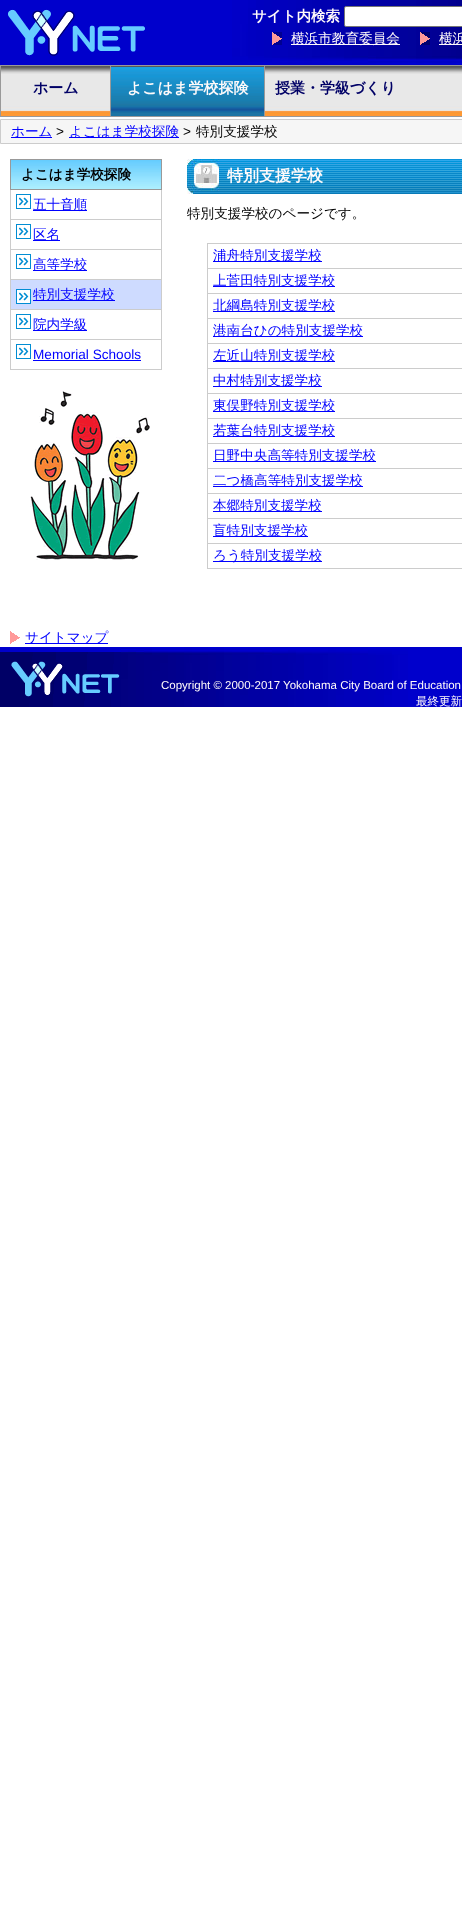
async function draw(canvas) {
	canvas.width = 462;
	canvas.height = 1928;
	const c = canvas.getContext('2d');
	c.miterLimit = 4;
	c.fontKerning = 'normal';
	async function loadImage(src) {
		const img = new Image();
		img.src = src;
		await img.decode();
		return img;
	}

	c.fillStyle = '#fff';
	c.fillRect(0, 0, 462, 1928);
	c.fillStyle = '#00c';
	c.fillRect(0, 0, 462, 65);
	c.drawImage(await loadImage('img1.png'), 232, 0, 230, 64);
	c.drawImage(await loadImage('img2.png'), 8, 9, 137, 47);
	c.font = 'bold 14.5px WenQuanYi Zen Hei';
	c.fillStyle = '#fffafa';
	c.fillText('サイト内検索', 252, 21);
	c.fillStyle = '#fff';
	c.beginPath();
	c.roundRect(344.5, 6.5, 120, 20, 1.5);
	c.fill();
	c.strokeStyle = '#767676';
	c.stroke();
	c.drawImage(await loadImage('img3.png'), 272, 32, 10, 13);
	c.fillStyle = '#fffafa';
	c.fillRect(291, 44, 109, 1);
	c.font = '500 13.6px WenQuanYi Zen Hei';
	c.fillText('横浜市教育委員会', 291, 43);
	c.drawImage(await loadImage('img4.png'), 420, 32, 10, 13);
	c.fillRect(439, 44, 23, 1);
	c.fillText('横浜', 439, 43);
	c.drawImage(await loadImage('img5.png'), 1, 66, 461, 50);
	for (const [x, y, w, h, color] of [
		[0, 65, 462, 1, '#999'],
		[0, 116, 462, 1, '#999'],
		[0, 66, 1, 50, '#999'],
	]) {
		c.fillStyle = color;
		c.fillRect(x, y, w, h);
	}
	c.font = 'bold 15px WenQuanYi Zen Hei';
	c.fillStyle = '#006';
	c.fillText('ホーム', 33, 93);
	c.fillStyle = '#999';
	c.fillRect(110, 66, 1, 50);
	c.drawImage(await loadImage('img6.png'), 111, 67, 153, 49);
	c.fillStyle = '#fffafa';
	c.fillText('よこはま学校探険', 127, 93);
	c.fillStyle = '#999';
	c.fillRect(264, 66, 1, 50);
	c.fillStyle = '#006';
	c.fillText('授業・学級づくり', 275, 93);
	c.fillStyle = '#f6f6f6';
	c.beginPath();
	c.rect(0.5, 119.5, 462, 24);
	c.fill();
	c.strokeStyle = '#ccc';
	c.stroke();
	c.fillStyle = '#00f';
	c.fillRect(11, 137, 41, 1);
	c.font = '500 13.6px WenQuanYi Zen Hei';
	c.fillText('ホーム', 11, 136);
	c.font = '13.6px Liberation Sans';
	c.fillStyle = '#000';
	c.fillText('>', 56, 136);
	c.fillStyle = '#00f';
	c.fillRect(69, 137, 110, 1);
	c.font = '500 13.6px WenQuanYi Zen Hei';
	c.fillText('よこはま学校探険', 69, 136);
	c.font = '13.6px Liberation Sans';
	c.fillStyle = '#000';
	c.fillText('>', 183, 136);
	c.font = '500 13.6px WenQuanYi Zen Hei';
	c.fillText('特別支援学校', 196, 136);
	c.drawImage(await loadImage('img7.png'), 11, 160, 150, 29);
	c.strokeStyle = '#999';
	c.strokeRect(10.5, 159.5, 151, 30);
	c.font = 'bold 13.6px WenQuanYi Zen Hei';
	c.fillText('よこはま学校探険', 21, 179);
	c.drawImage(await loadImage('img8.png'), 16, 194, 15, 15);
	for (const [x, y, w, h, color] of [
		[161, 190, 1, 180, '#ccc'],
		[10, 219, 152, 1, '#ccc'],
		[10, 190, 1, 30, '#ccc'],
		[33, 210, 54, 1, '#00f'],
	]) {
		c.fillStyle = color;
		c.fillRect(x, y, w, h);
	}
	c.font = '500 13.6px WenQuanYi Zen Hei';
	c.fillText('五十音順', 33, 209);
	c.drawImage(await loadImage('img8.png'), 16, 224, 15, 15);
	for (const [x, y, w, h, color] of [
		[10, 249, 152, 1, '#ccc'],
		[10, 220, 1, 30, '#ccc'],
		[33, 240, 27, 1, '#00f'],
	]) {
		c.fillStyle = color;
		c.fillRect(x, y, w, h);
	}
	c.fillText('区名', 33, 239);
	c.drawImage(await loadImage('img8.png'), 16, 254, 15, 15);
	for (const [x, y, w, h, color] of [
		[10, 279, 152, 1, '#ccc'],
		[10, 250, 1, 30, '#ccc'],
		[33, 270, 54, 1, '#00f'],
	]) {
		c.fillStyle = color;
		c.fillRect(x, y, w, h);
	}
	c.fillText('高等学校', 33, 269);
	c.fillStyle = '#cedbff';
	c.fillRect(11, 280, 150, 29);
	c.drawImage(await loadImage('img8.png'), 16, 289, 15, 15);
	for (const [x, y, w, h, color] of [
		[10, 309, 152, 1, '#ccc'],
		[10, 280, 1, 30, '#ccc'],
		[33, 300, 82, 1, '#00f'],
	]) {
		c.fillStyle = color;
		c.fillRect(x, y, w, h);
	}
	c.fillText('特別支援学校', 33, 299);
	c.drawImage(await loadImage('img8.png'), 16, 314, 15, 15);
	for (const [x, y, w, h, color] of [
		[10, 339, 152, 1, '#ccc'],
		[10, 310, 1, 30, '#ccc'],
		[33, 330, 54, 1, '#00f'],
	]) {
		c.fillStyle = color;
		c.fillRect(x, y, w, h);
	}
	c.fillText('院内学級', 33, 329);
	c.drawImage(await loadImage('img8.png'), 16, 344, 15, 15);
	c.fillStyle = '#ccc';
	c.fillRect(10, 369, 152, 1);
	c.fillRect(10, 340, 1, 30);
	c.font = '13.6px Liberation Sans';
	c.fillStyle = '#00f';
	c.fillText('Memorial Schools', 33, 359);
	c.fillRect(33, 360, 108, 1);
	c.drawImage(await loadImage('img9.png'), 219, 159, 243, 35);
	c.drawImage(await loadImage('img10.png'), 187, 159, 32, 35);
	c.font = 'bold 16px WenQuanYi Zen Hei';
	c.fillStyle = '#fffafa';
	c.fillText('特別支援学校', 227, 181);
	c.font = '500 13.6px WenQuanYi Zen Hei';
	c.fillStyle = '#000';
	c.fillText('特別支援学校のページです。', 187, 218);
	for (const [x, y, w, h, color] of [
		[207, 243, 255, 1, '#ccc'],
		[207, 243, 1, 326, '#ccc'],
		[208, 268, 254, 1, '#ccc'],
		[213, 261, 109, 1, '#00f'],
	]) {
		c.fillStyle = color;
		c.fillRect(x, y, w, h);
	}
	c.fillText('浦舟特別支援学校', 213, 260);
	c.fillStyle = '#ccc';
	c.fillRect(208, 293, 254, 1);
	c.fillStyle = '#00f';
	c.fillRect(213, 286, 122, 1);
	c.fillText('上菅田特別支援学校', 213, 285);
	c.fillStyle = '#ccc';
	c.fillRect(208, 318, 254, 1);
	c.fillStyle = '#00f';
	c.fillRect(213, 311, 122, 1);
	c.fillText('北綱島特別支援学校', 213, 310);
	c.fillStyle = '#ccc';
	c.fillRect(208, 343, 254, 1);
	c.fillStyle = '#00f';
	c.fillRect(213, 336, 150, 1);
	c.fillText('港南台ひの特別支援学校', 213, 335);
	c.fillStyle = '#ccc';
	c.fillRect(208, 368, 254, 1);
	c.fillStyle = '#00f';
	c.fillRect(213, 361, 122, 1);
	c.fillText('左近山特別支援学校', 213, 360);
	c.fillStyle = '#ccc';
	c.fillRect(208, 393, 254, 1);
	c.fillStyle = '#00f';
	c.fillRect(213, 386, 109, 1);
	c.fillText('中村特別支援学校', 213, 385);
	c.fillStyle = '#ccc';
	c.fillRect(208, 418, 254, 1);
	c.fillStyle = '#00f';
	c.fillRect(213, 411, 122, 1);
	c.fillText('東俣野特別支援学校', 213, 410);
	c.fillStyle = '#ccc';
	c.fillRect(208, 443, 254, 1);
	c.fillStyle = '#00f';
	c.fillRect(213, 436, 122, 1);
	c.fillText('若葉台特別支援学校', 213, 435);
	c.fillStyle = '#ccc';
	c.fillRect(208, 468, 254, 1);
	c.fillStyle = '#00f';
	c.fillRect(213, 461, 163, 1);
	c.fillText('日野中央高等特別支援学校', 213, 460);
	c.fillStyle = '#ccc';
	c.fillRect(208, 493, 254, 1);
	c.fillStyle = '#00f';
	c.fillRect(213, 486, 150, 1);
	c.fillText('二つ橋高等特別支援学校', 213, 485);
	c.fillStyle = '#ccc';
	c.fillRect(208, 518, 254, 1);
	c.fillStyle = '#00f';
	c.fillRect(213, 511, 109, 1);
	c.fillText('本郷特別支援学校', 213, 510);
	c.fillStyle = '#ccc';
	c.fillRect(208, 543, 254, 1);
	c.fillStyle = '#00f';
	c.fillRect(213, 536, 95, 1);
	c.fillText('盲特別支援学校', 213, 535);
	c.fillStyle = '#ccc';
	c.fillRect(208, 568, 254, 1);
	c.fillStyle = '#00f';
	c.fillRect(213, 561, 109, 1);
	c.fillText('ろう特別支援学校', 213, 560);
	c.drawImage(await loadImage('img11.png'), 30, 390, 120, 170);
	c.drawImage(await loadImage('img12.png'), 10, 631, 10, 13);
	c.fillRect(25, 643, 83, 1);
	c.fillText('サイトマップ', 25, 642);
	c.fillStyle = '#00c';
	c.fillRect(408, 647, 54, 60);
	c.drawImage(await loadImage('img13.png'), 0, 647, 408, 60);
	c.drawImage(await loadImage('img14.png'), 0, 648, 121, 59);
	c.font = '11.5px Liberation Sans';
	c.fillStyle = '#fffafa';
	c.fillText('Copyright © 2000-2017 Yokohama City Board of Education', 161, 689);
	c.font = '500 11.5px WenQuanYi Zen Hei';
	c.fillText('最終更新', 416, 705);
}

draw(document.querySelector('canvas'));
